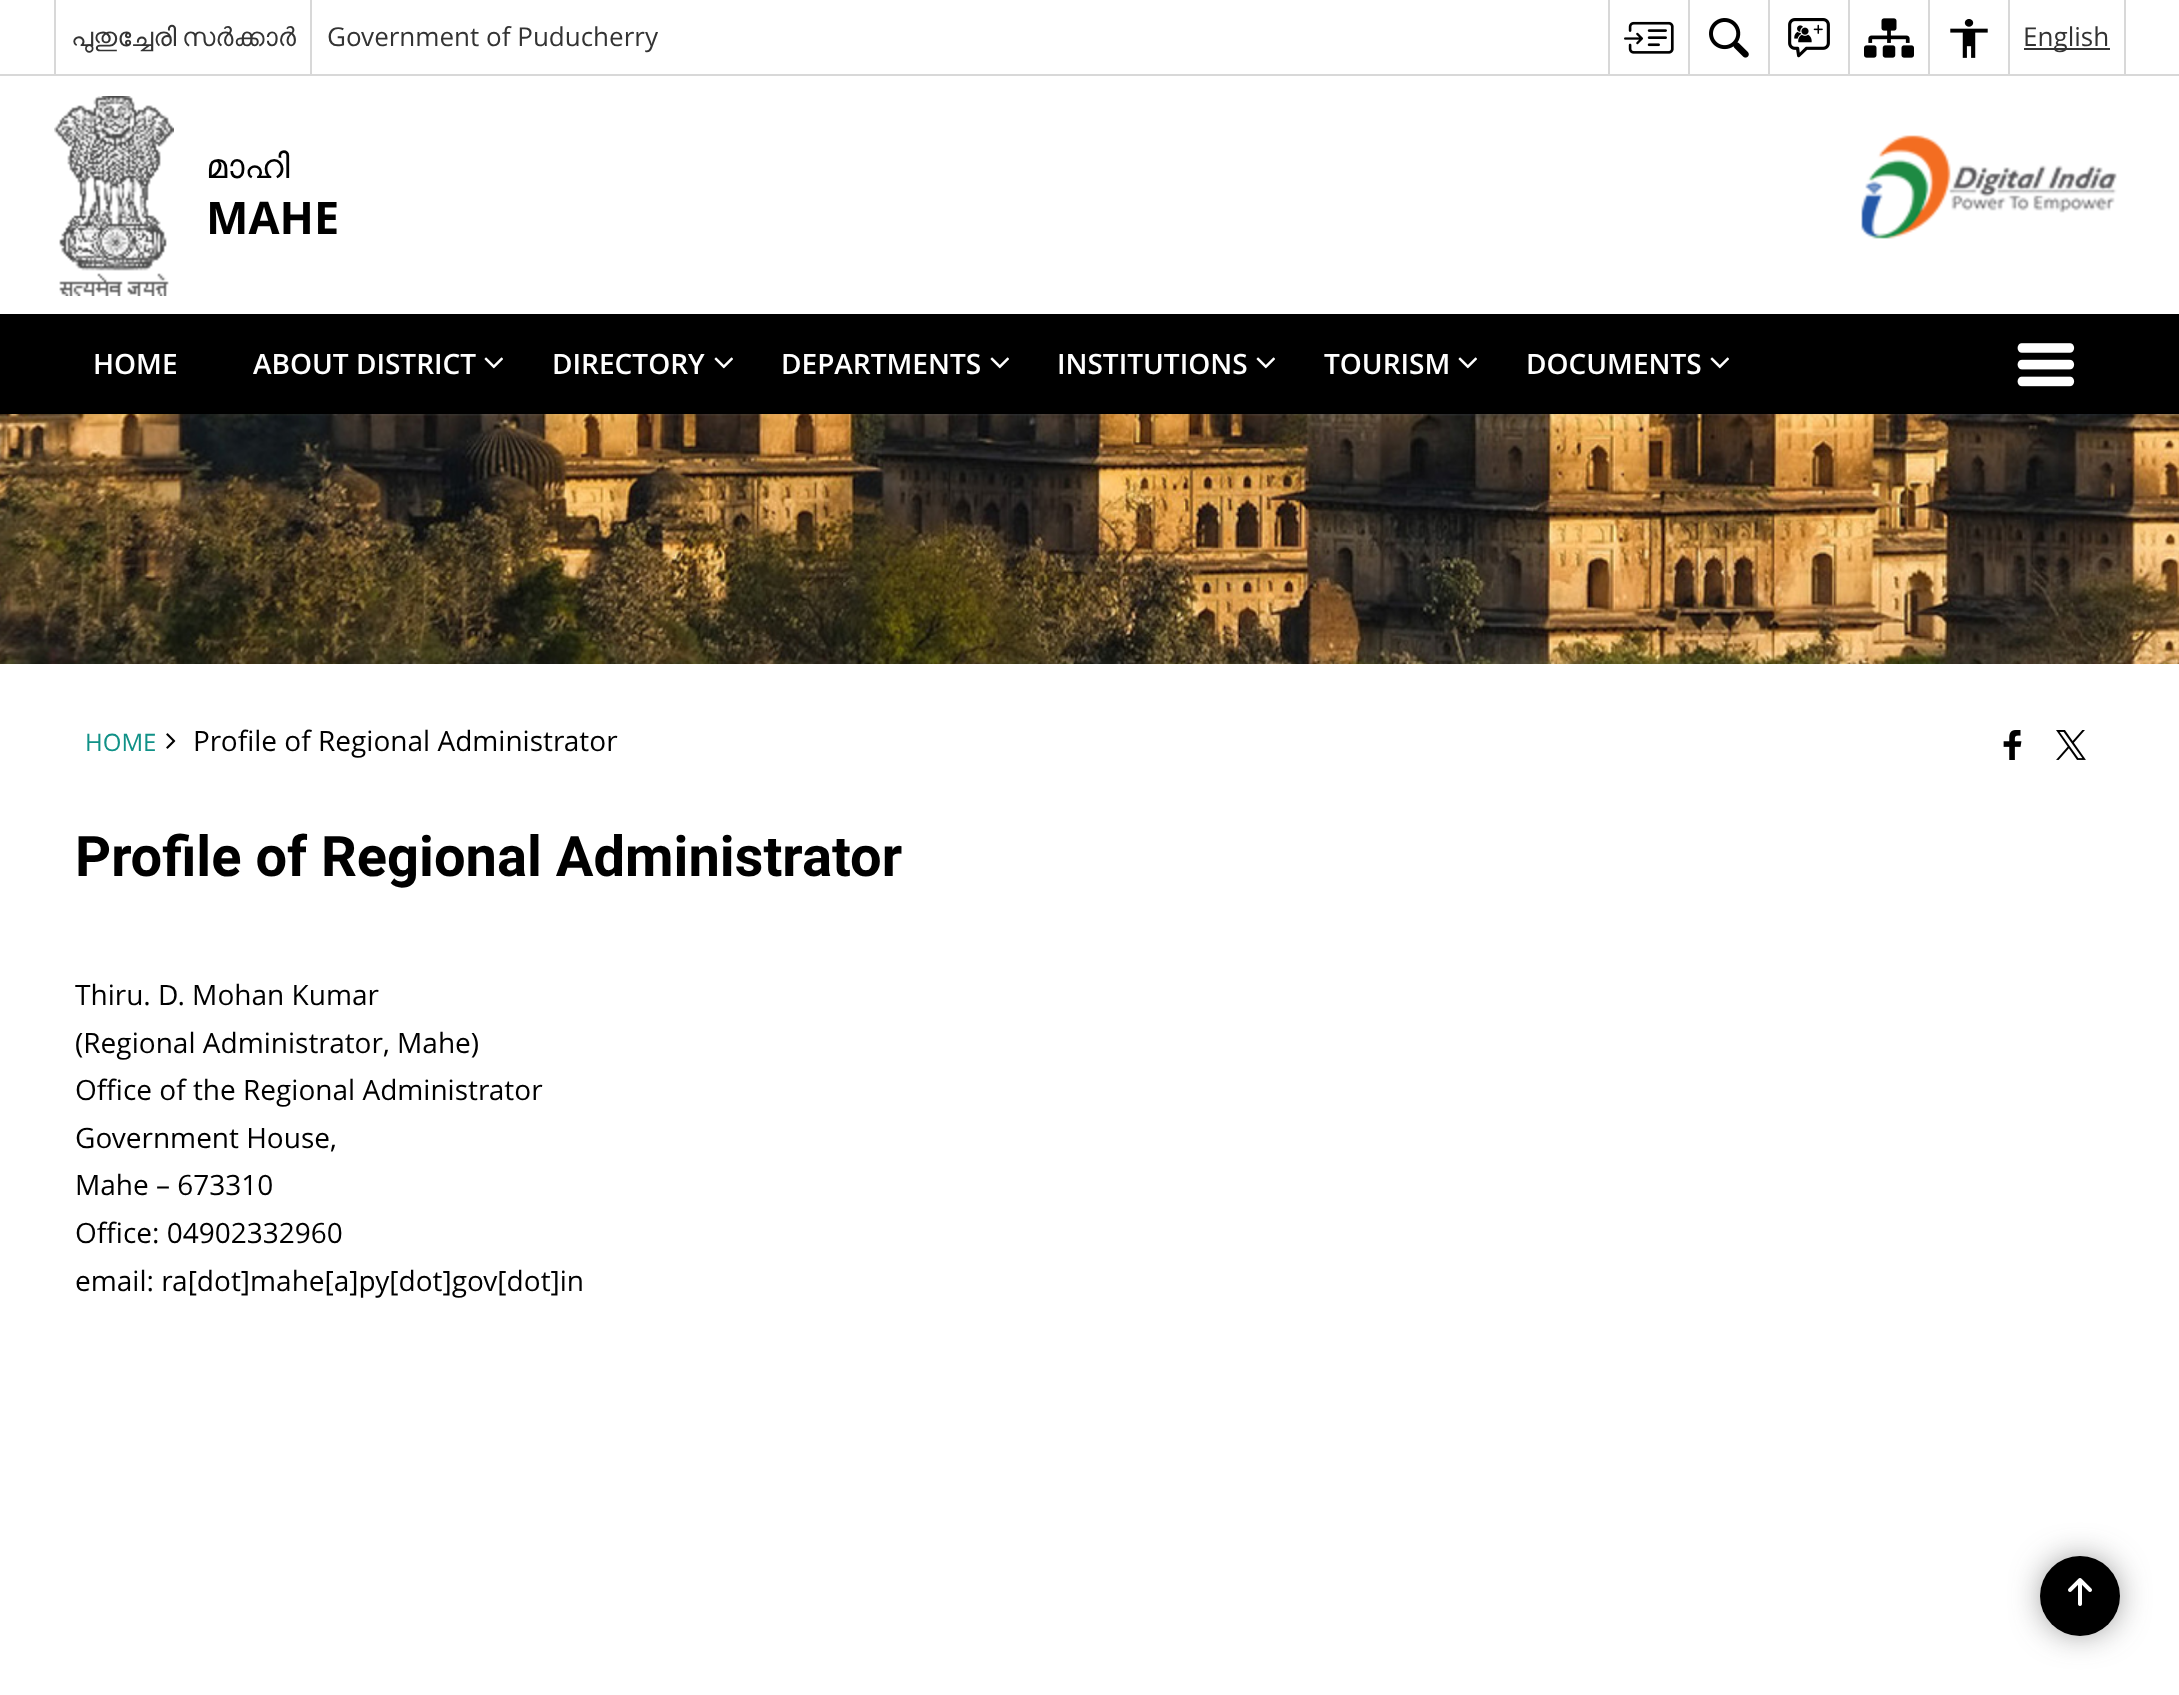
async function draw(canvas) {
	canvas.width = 2179;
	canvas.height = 1695;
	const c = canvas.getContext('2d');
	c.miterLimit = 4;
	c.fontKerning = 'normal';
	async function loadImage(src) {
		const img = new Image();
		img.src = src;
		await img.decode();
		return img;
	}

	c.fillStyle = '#fff';
	c.fillRect(0, 0, 2179, 1695);
	c.fillStyle = '#d8d8d8';
	c.fillRect(0, 74, 2179, 2);
	c.fillRect(54, 0, 2, 74);
	c.wordSpacing = '-1px';
	c.font = '26px FreeSans';
	c.fillStyle = '#333';
	c.fillText('പുതുച്ചേരി സർക്കാർ', 71, 46);
	c.fillStyle = '#d8d8d8';
	c.fillRect(310, 0, 2, 74);
	c.wordSpacing = '0px';
	c.font = '26px Open Sans';
	c.fillStyle = '#333';
	c.fillText('Government of Puducherry', 327, 46);
	c.fillStyle = '#d8d8d8';
	c.fillRect(1608, 0, 2, 74);
	c.drawImage(await loadImage('img1.png'), 1624, 21, 50, 33);
	c.fillRect(1688, 0, 2, 74);
	c.drawImage(await loadImage('img2.png'), 1709, 18, 40, 40);
	c.fillRect(1768, 0, 2, 74);
	c.drawImage(await loadImage('img3.png'), 1788, 18, 42, 40);
	c.fillRect(1848, 0, 2, 74);
	c.drawImage(await loadImage('img4.png'), 1864, 18, 50, 40);
	c.fillRect(1928, 0, 2, 74);
	c.drawImage(await loadImage('img5.png'), 1950, 19, 38, 39);
	for (const [x, y, w, h, color] of [
		[2124, 0, 2, 74, '#d8d8d8'],
		[2008, 0, 2, 74, '#d8d8d8'],
		[2024, 48, 86, 2, '#333'],
	]) {
		c.fillStyle = color;
		c.fillRect(x, y, w, h);
	}
	c.fillText('English', 2023, 46);
	c.drawImage(await loadImage('img6.png'), 54, 96, 120, 200);
	c.font = '34px FreeSans';
	c.fillStyle = '#000';
	c.fillText('മാഹി', 206, 178);
	c.font = 'bold 45px Open Sans';
	c.fillText('MAHE', 206, 234);
	c.drawImage(await loadImage('img7.png'), 1861, 135, 256, 104);
	c.fillRect(0, 314, 2179, 100);
	c.font = '600 28px Open Sans';
	c.fillStyle = '#fff';
	c.fillText('HOME', 93, 374);
	c.fillText('ABOUT DISTRICT', 253, 374);
	c.drawImage(await loadImage('img8.png'), 484, 357, 19, 12);
	c.fillText('DIRECTORY', 552, 374);
	c.drawImage(await loadImage('img8.png'), 714, 357, 19, 12);
	c.fillText('DEPARTMENTS', 781, 374);
	c.drawImage(await loadImage('img8.png'), 990, 357, 19, 12);
	c.fillText('INSTITUTIONS', 1057, 374);
	c.drawImage(await loadImage('img8.png'), 1256, 357, 19, 12);
	c.fillText('TOURISM', 1324, 374);
	c.drawImage(await loadImage('img8.png'), 1458, 357, 19, 12);
	c.fillText('DOCUMENTS', 1526, 374);
	c.drawImage(await loadImage('img8.png'), 1710, 357, 19, 12);
	c.drawImage(await loadImage('img9.png'), 2017, 343, 58, 44);
	c.drawImage(await loadImage('img10.png'), 0, 414, 2179, 250);
	c.font = '24px Open Sans';
	c.fillStyle = '#109187';
	c.fillText('HOME', 85, 751);
	c.drawImage(await loadImage('img11.png'), 166, 733, 10, 16);
	c.font = '28px Open Sans';
	c.fillStyle = '#000';
	c.fillText('Profile of Regional Administrator', 193, 751);
	c.drawImage(await loadImage('img12.png'), 2003, 730, 19, 30);
	c.drawImage(await loadImage('img13.png'), 2056, 730, 30, 30);
	c.font = 'bold 56px Roboto';
	c.fillText('Profile of Regional Administrator', 75, 876);
	c.font = '28px Open Sans';
	for (const [text, x, y] of [
		['Thiru. D. Mohan Kumar', 75, 1005],
		['(Regional Administrator, Mahe)', 75, 1053],
		['Office of the Regional Administrator', 75, 1100],
		['Government House,', 75, 1148],
		['Mahe – 673310', 75, 1195],
		['Office: 04902332960', 75, 1243],
		['email: ra[dot]mahe[a]py[dot]gov[dot]in', 75, 1291],
	]) {
		c.fillText(text, x, y);
	}
	c.fillStyle = '#3c3c3c';
	c.filter = 'blur(19px)';
	c.beginPath();
	c.roundRect(2050, 1566, 60, 60, 30);
	c.fill();
	c.filter = 'none';
	c.fillStyle = '#000';
	c.beginPath();
	c.arc(2080, 1596, 40, 0, 2 * Math.PI);
	c.fill();
	c.drawImage(await loadImage('img14.png'), 2068, 1578, 24, 28);
}

draw(document.querySelector('canvas'));
